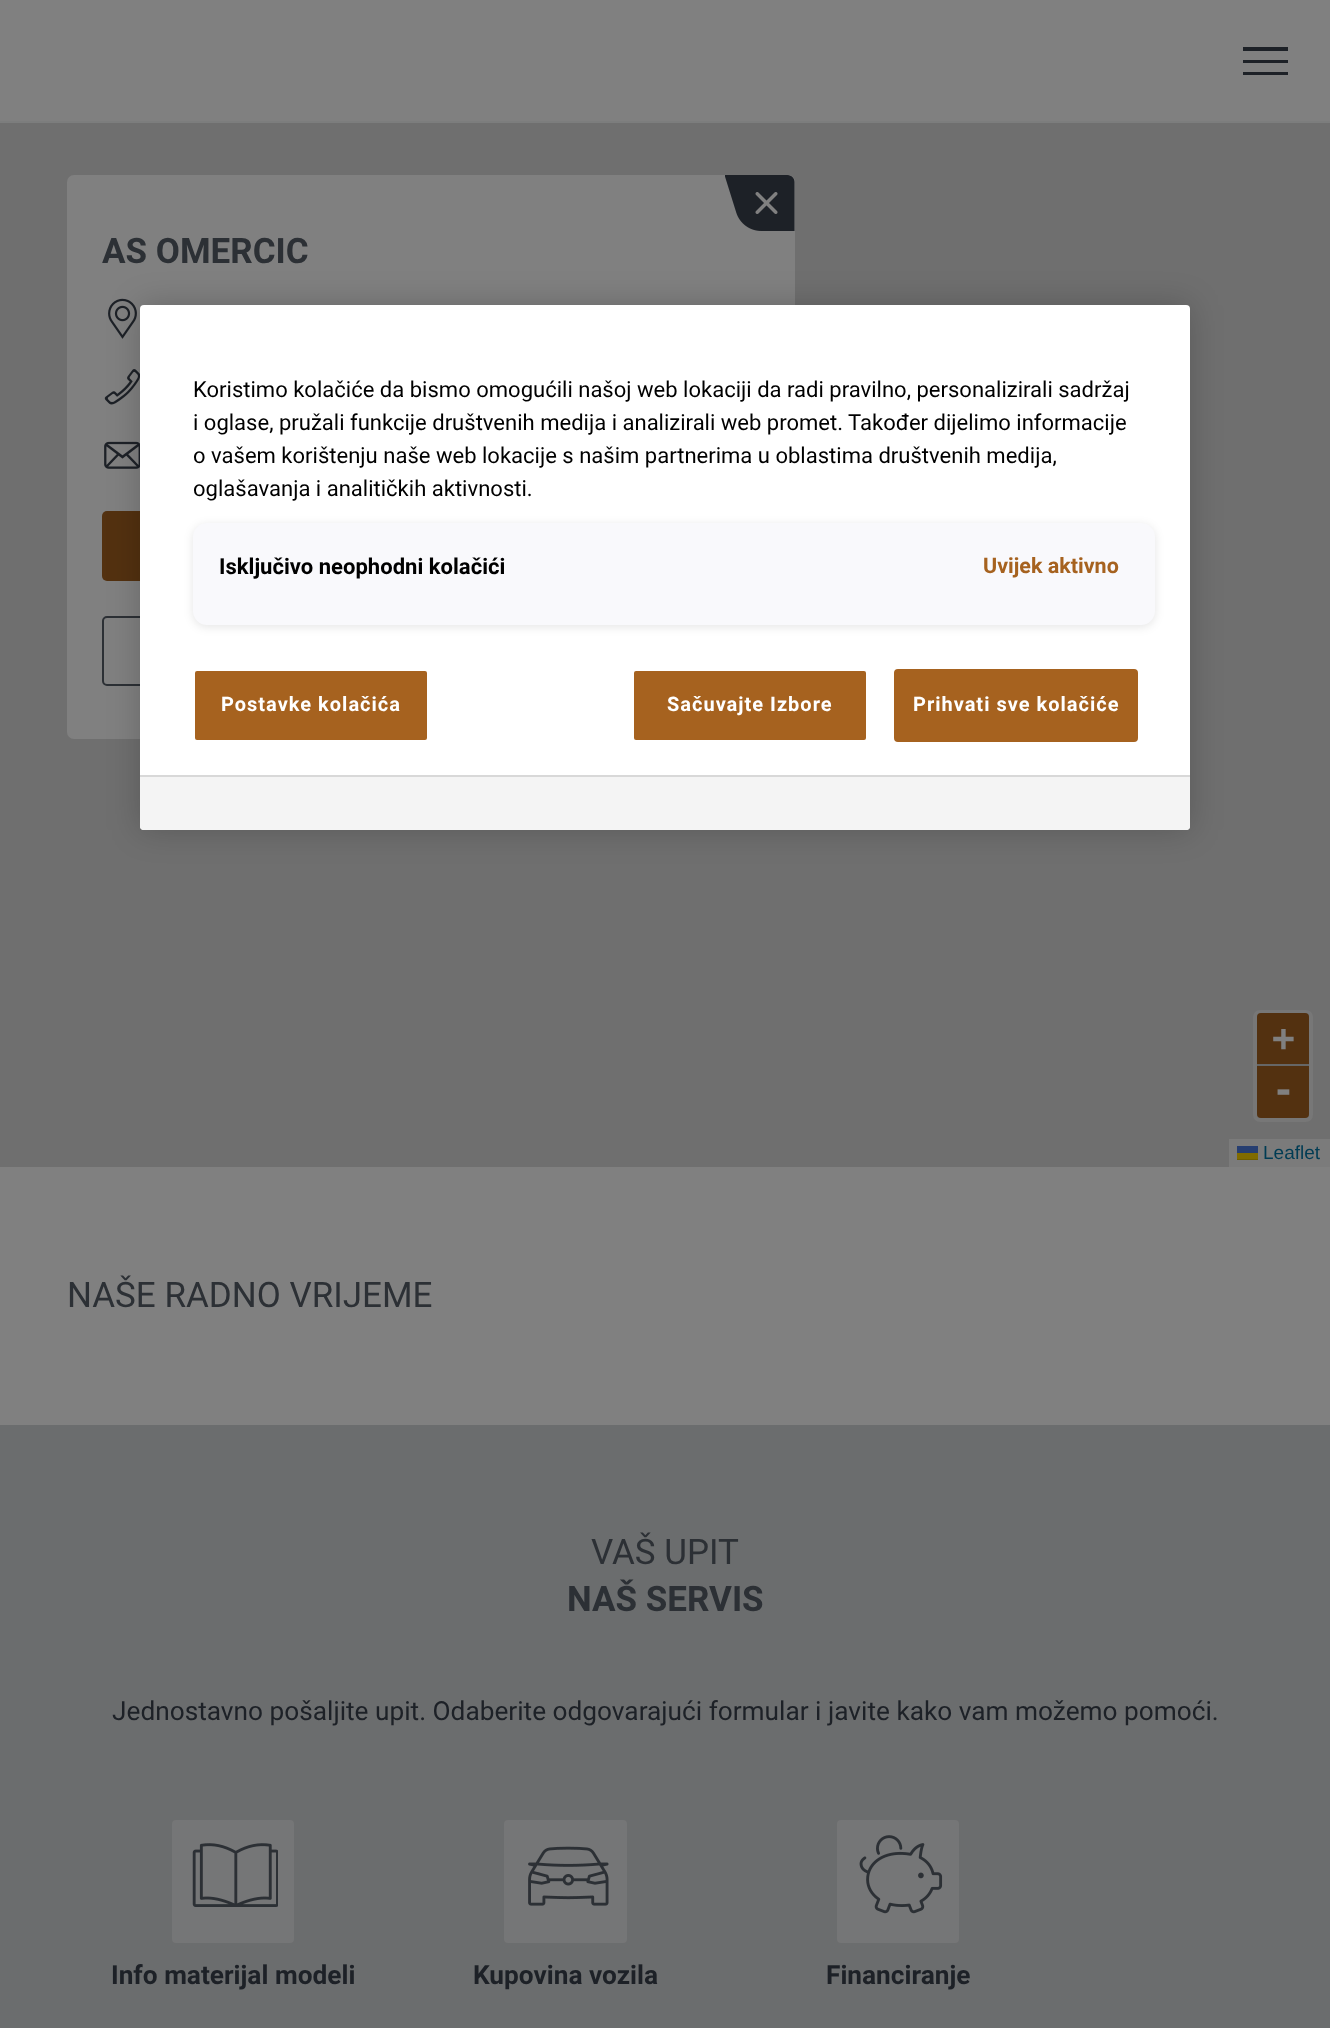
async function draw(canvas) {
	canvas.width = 1330;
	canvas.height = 2028;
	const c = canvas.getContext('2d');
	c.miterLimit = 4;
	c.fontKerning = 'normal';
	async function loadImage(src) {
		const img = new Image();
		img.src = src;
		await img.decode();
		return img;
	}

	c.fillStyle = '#808080';
	c.fillRect(0, 0, 1330, 2028);
	c.fillStyle = '#7c7d7d';
	c.fillRect(0, 121, 1330, 2);
	c.save();
	c.beginPath();
	c.rect(1243, 47, 45, 28);
	c.clip();
	c.fillStyle = '#1d2127';
	c.beginPath();
	c.moveTo(1288, 72);
	c.lineTo(1288, 75);
	c.lineTo(1242, 75);
	c.lineTo(1242, 72);
	c.closePath();
	c.moveTo(1288, 60);
	c.lineTo(1288, 63);
	c.lineTo(1242, 63);
	c.lineTo(1242, 60);
	c.closePath();
	c.moveTo(1288, 47);
	c.lineTo(1288, 51);
	c.lineTo(1242, 51);
	c.lineTo(1242, 47);
	c.closePath();
	c.fill('evenodd');
	c.restore();
	c.fillStyle = '#6f6f6f';
	c.fillRect(0, 123, 1330, 1044);
	c.fillStyle = '#808080';
	c.beginPath();
	c.roundRect(67, 175, 728, 564, 7);
	c.fill();
	c.drawImage(await loadImage('img1.png'), 725, 175, 70, 56);
	c.font = 'bold 35px Roboto';
	c.fillStyle = '#2c3035';
	c.fillText('AS OMERCIC', 102, 263);
	c.drawImage(await loadImage('img2.png'), 108, 298, 29, 41);
	c.drawImage(await loadImage('img3.png'), 104, 369, 36, 36);
	c.drawImage(await loadImage('img4.png'), 104, 441, 36, 28);
	c.fillStyle = '#533110';
	c.beginPath();
	c.roundRect(102, 511, 658, 70, 5);
	c.fill();
	c.beginPath();
	c.roundRect(103, 617, 656, 68, 4);
	c.strokeStyle = '#2c3035';
	c.lineWidth = 2;
	c.stroke();
	c.beginPath();
	c.roundRect(1255, 1012, 56, 108, 5);
	c.strokeStyle = '#777';
	c.lineWidth = 4;
	c.stroke();
	c.beginPath();
	c.roundRect(1257, 1013, 52, 53, [4, 4, 0, 0]);
	c.fill();
	c.fillStyle = '#666';
	c.fillRect(1257, 1064, 52, 2);
	c.font = 'bold 38px DejaVu Sans Mono';
	c.fillStyle = '#808080';
	c.fillText('+', 1272, 1051);
	c.fillStyle = '#533110';
	c.beginPath();
	c.roundRect(1257, 1066, 52, 52, [0, 0, 4, 4]);
	c.fill();
	c.fillStyle = '#808080';
	c.fillText('-', 1272, 1103);
	c.fillStyle = '#7b7b7b';
	c.fillRect(1229, 1139, 101, 28);
	c.font = '19px Liberation Sans';
	c.fillStyle = '#003c54';
	c.fillText('Leaflet', 1263, 1159);
	for (const [x, y, w, h, color] of [
		[1237, 1146, 21, 7, '#263e71'],
		[1237, 1153, 21, 6, '#806b00'],
		[1237, 1159, 21, 1, '#705e00'],
	]) {
		c.fillStyle = color;
		c.fillRect(x, y, w, h);
	}
	c.font = '35px Roboto';
	c.fillStyle = '#2c3035';
	c.fillText('NAŠE RADNO VRIJEME', 67, 1307);
	c.fillStyle = '#6b6d6e';
	c.fillRect(0, 1425, 1330, 603);
	c.fillStyle = '#2c3035';
	c.fillText('VAŠ UPIT', 591, 1564);
	c.font = 'bold 35px Roboto';
	c.fillText('NAŠ SERVIS', 567, 1611);
	c.font = '26.25px Roboto';
	c.fillStyle = '#1d2127';
	c.fillText('Jednostavno pošaljite upit. Odaberite odgovarajući formular i javite kako vam možemo pomoći.', 112, 1720);
	c.fillStyle = '#757677';
	c.beginPath();
	c.roundRect(172, 1820, 122, 123, 4);
	c.fill();
	c.drawImage(await loadImage('img5.png'), 192, 1843, 86, 64);
	c.font = 'bold 26.25px Roboto';
	c.fillStyle = '#1d2127';
	c.fillText('Info materijal modeli', 111, 1984);
	c.fillStyle = '#757677';
	c.beginPath();
	c.roundRect(504, 1820, 123, 123, 4);
	c.fill();
	c.drawImage(await loadImage('img6.png'), 528, 1846, 81, 60);
	c.fillStyle = '#1d2127';
	c.fillText('Kupovina vozila', 473, 1984);
	c.fillStyle = '#757677';
	c.beginPath();
	c.roundRect(837, 1820, 122, 123, 4);
	c.fill();
	c.drawImage(await loadImage('img7.png'), 859, 1835, 84, 79);
	c.fillStyle = '#1d2127';
	c.fillText('Financiranje', 826, 1984);
	c.fillStyle = '#00000033';
	c.filter = 'blur(16px)';
	c.beginPath();
	c.roundRect(140, 305, 1050, 525, 4);
	c.fill();
	c.filter = 'none';
	c.fillStyle = '#fff';
	c.beginPath();
	c.roundRect(140, 305, 1050, 525, 4);
	c.fill();
	c.font = '22.05px Roboto';
	c.fillStyle = '#000';
	for (const [text, x, y] of [
		['Koristimo kolačiće da bismo omogućili našoj web lokaciji da radi pravilno, personalizirali sadržaj', 193, 397],
		['i oglase, pružali funkcije društvenih medija i analizirali web promet. Također dijelimo informacije', 193, 430],
		['o vašem korištenju naše web lokacije s našim partnerima u oblastima društvenih medija,', 193, 463],
		['oglašavanja i analitičkih aktivnosti.', 193, 496],
	]) {
		c.fillText(text, x, y);
	}
	c.fillStyle = '#0000001a';
	c.filter = 'blur(5px)';
	c.beginPath();
	c.roundRect(193, 525, 962, 102, 14);
	c.fill();
	c.filter = 'none';
	c.fillStyle = '#f9f9fc';
	c.beginPath();
	c.roundRect(193, 523, 962, 102, 14);
	c.fill();
	c.font = 'bold 22.05px Roboto';
	c.fillStyle = '#000';
	c.fillText('Isključivo neophodni kolačići', 219, 574);
	c.font = 'bold 21.5px Roboto';
	c.fillStyle = '#a6621f';
	c.fillText('Uvijek aktivno', 983, 573);
	c.beginPath();
	c.roundRect(194, 670, 234, 71, 3);
	c.fill();
	c.strokeStyle = '#fff';
	c.lineWidth = 2;
	c.stroke();
	c.letterSpacing = '1px';
	c.font = 'bold 20px Roboto';
	c.fillStyle = '#fff';
	c.fillText('Postavke kolačića', 221, 711);
	c.fillStyle = '#a6621f';
	c.beginPath();
	c.roundRect(633, 670, 234, 71, 3);
	c.fill();
	c.stroke();
	c.fillStyle = '#fff';
	c.fillText('Sačuvajte Izbore', 667, 711);
	c.fillStyle = '#a6621f';
	c.beginPath();
	c.roundRect(895, 670, 242, 71, 3);
	c.fill();
	c.strokeStyle = '#a6621f';
	c.stroke();
	c.fillStyle = '#fff';
	c.fillText('Prihvati sve kolačiće', 913, 711);
	c.fillStyle = '#f4f4f4';
	c.beginPath();
	c.roundRect(140, 775, 1050, 55, [0, 0, 4, 4]);
	c.fill();
	c.fillStyle = '#d8d8d8';
	c.fillRect(140, 775, 1050, 2);
}

draw(document.querySelector('canvas'));
